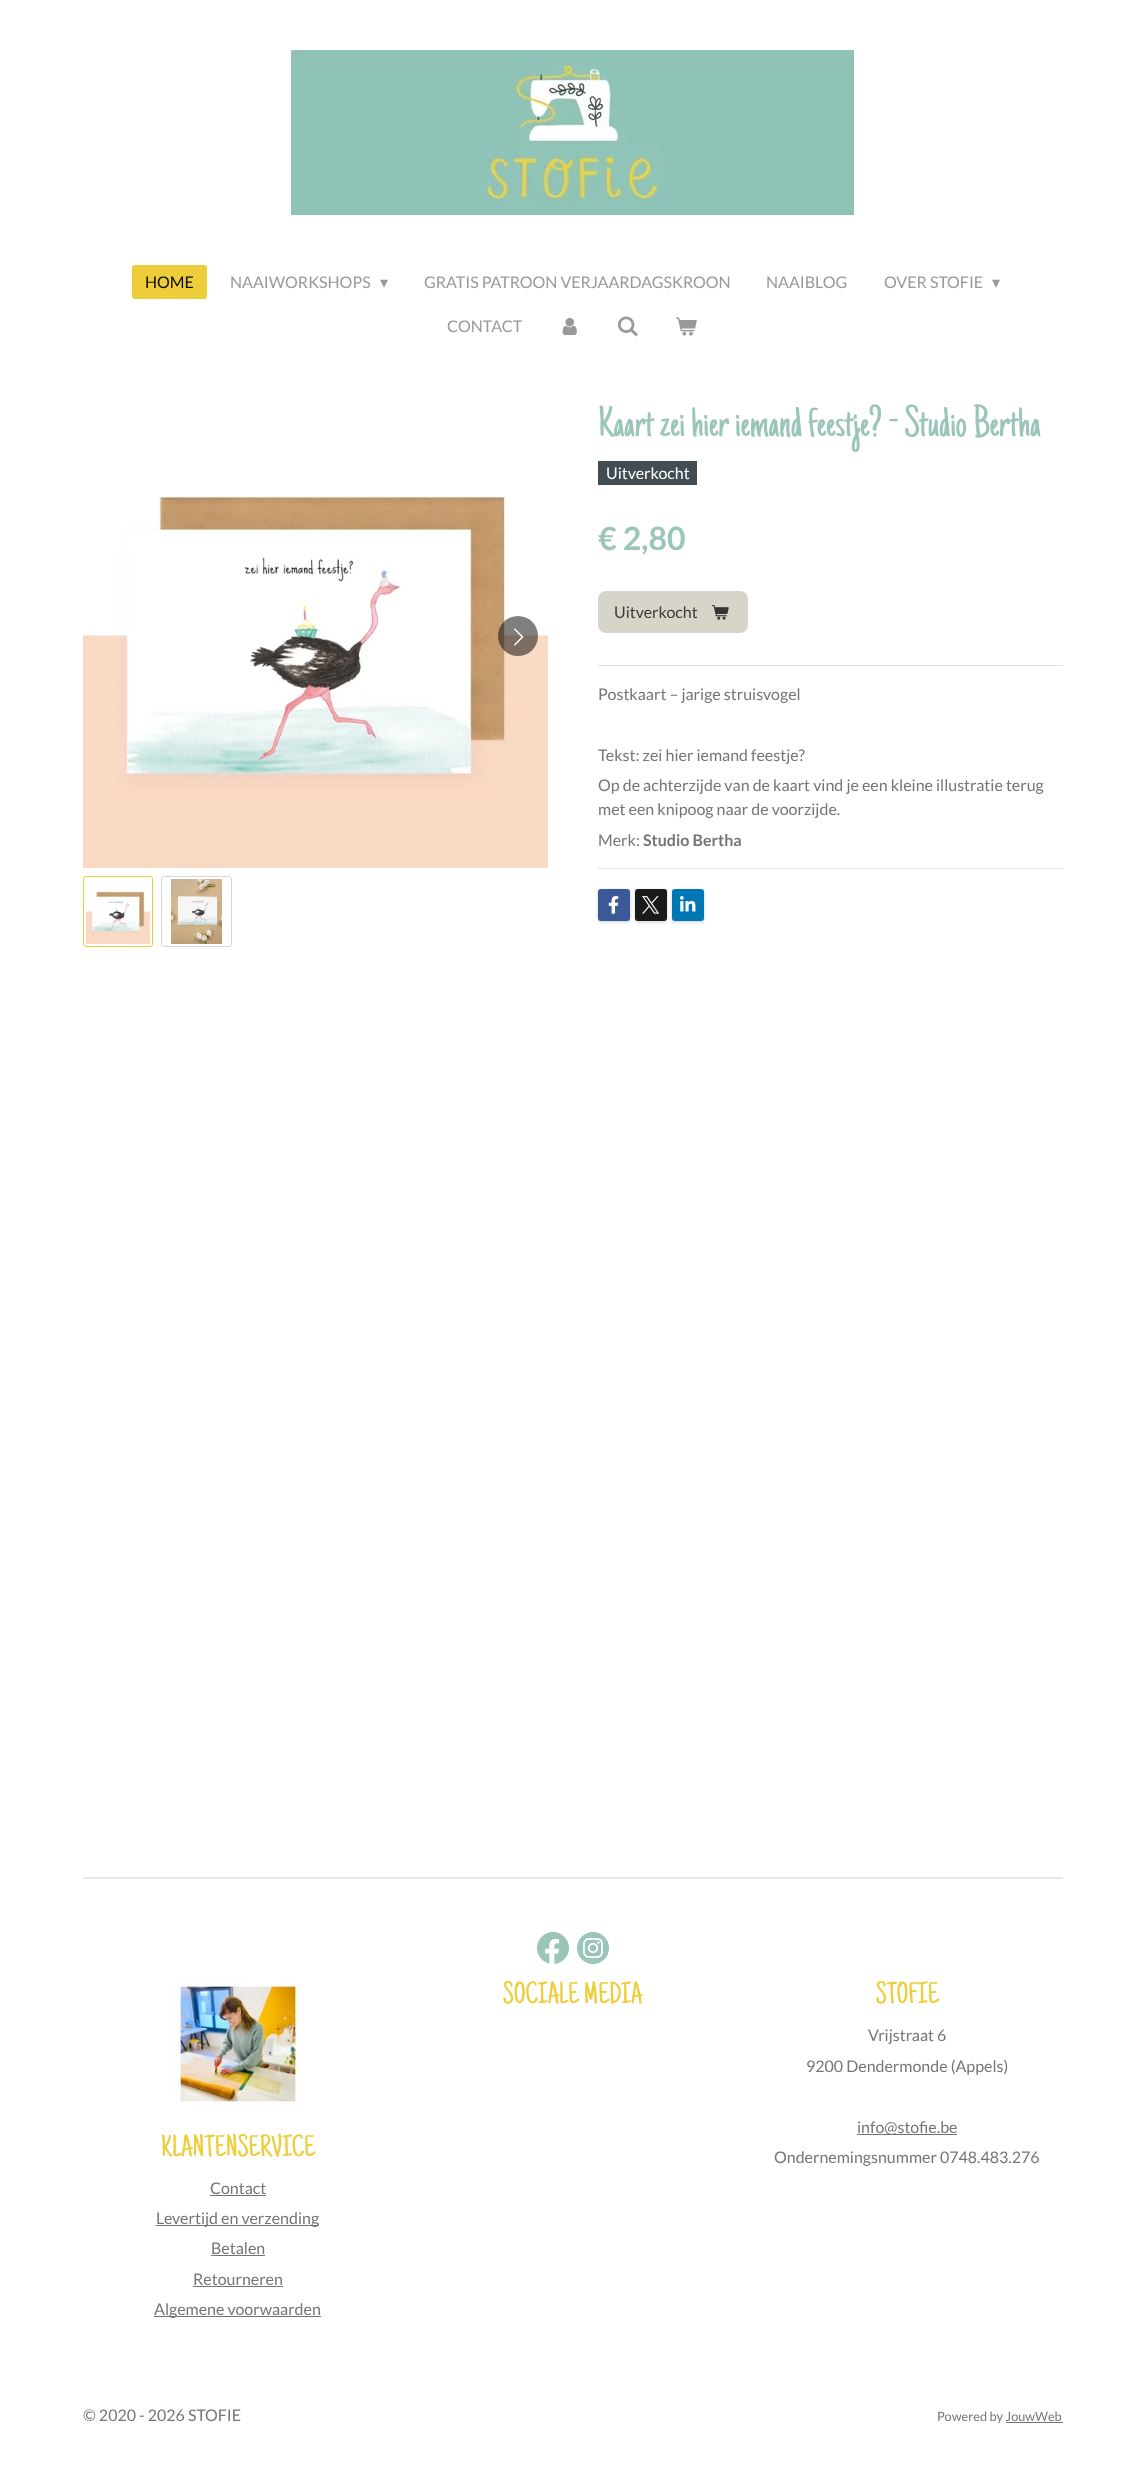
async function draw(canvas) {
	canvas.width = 1145;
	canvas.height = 2480;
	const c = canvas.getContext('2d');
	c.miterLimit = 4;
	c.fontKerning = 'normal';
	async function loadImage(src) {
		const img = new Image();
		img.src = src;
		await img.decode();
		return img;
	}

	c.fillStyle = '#fff';
	c.fillRect(0, 0, 1145, 2480);
	c.drawImage(await loadImage('img1.png'), 291, 50, 563, 165);
	c.fillStyle = '#edcd3a';
	c.beginPath();
	c.roundRect(132, 265, 75, 34, 3);
	c.fill();
	c.font = '16px Lato';
	c.fillStyle = '#0d0b01';
	c.fillText('HOME', 145, 288);
	c.fillStyle = '#999';
	c.fillText('NAAIWORKSHOPS', 230, 288);
	c.font = '16px DejaVu Sans';
	c.fillText('▾', 380, 288);
	c.font = '16px Lato';
	for (const [text, x, y] of [
		['GRATIS PATROON VERJAARDAGSKROON', 424, 288],
		['NAAIBLOG', 766, 288],
		['OVER STOFIE', 884, 288],
	]) {
		c.fillText(text, x, y);
	}
	c.font = '16px DejaVu Sans';
	c.fillText('▾', 992, 288);
	c.font = '16px Lato';
	c.fillText('CONTACT', 447, 332);
	c.drawImage(await loadImage('img2.png'), 562, 317, 15, 19);
	c.drawImage(await loadImage('img3.png'), 618, 316, 20, 21);
	c.drawImage(await loadImage('img4.png'), 676, 317, 21, 19);
	c.font = '44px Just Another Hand';
	c.fillStyle = '#9ac5b8';
	c.fillText('Kaart zei hier iemand feestje? - Studio Bertha', 598, 436);
	c.fillStyle = '#424c51';
	c.fillRect(598, 461, 99, 24);
	c.font = '16px Lato';
	c.fillStyle = '#fff';
	c.fillText('Uitverkocht', 606, 479);
	c.drawImage(await loadImage('img5.png'), 83, 496, 465, 372);
	c.fillStyle = '#00000080';
	c.beginPath();
	c.arc(518, 636, 20, 0, 2 * Math.PI);
	c.fill();
	c.drawImage(await loadImage('img6.png'), 514, 628, 10, 18);
	c.beginPath();
	c.roundRect(83.5, 876.5, 69, 70, 2.5);
	c.strokeStyle = '#edcd3a';
	c.stroke();
	c.drawImage(await loadImage('img7.png'), 86, 891, 64, 53);
	c.beginPath();
	c.roundRect(161.5, 876.5, 70, 70, 2.5);
	c.strokeStyle = '#d6d6d6';
	c.stroke();
	c.drawImage(await loadImage('img8.png'), 171, 879, 51, 65);
	c.font = 'bold 32px Lato';
	c.fillStyle = '#9ac5b8';
	c.fillText('€ 2,80', 598, 550);
	c.fillStyle = '#d7d5c9';
	c.beginPath();
	c.roundRect(598, 591, 150, 42, 8);
	c.fill();
	c.font = '16px Lato';
	c.fillStyle = '#3c3c3b';
	c.fillText('Uitverkocht', 614, 618);
	c.drawImage(await loadImage('img9.png'), 712, 604, 17, 16);
	c.fillStyle = '#e3e3e3';
	c.fillRect(598, 665, 465, 1);
	c.fillStyle = '#757575';
	for (const [text, x, y] of [
		['Postkaart – jarige struisvogel', 598, 700],
		['Tekst: zei hier iemand feestje?', 598, 761],
		['Op de achterzijde van de kaart vind je een kleine illustratie terug', 598, 791],
		['met een knipoog naar de voorzijde.', 598, 815],
		['Merk:', 598, 846],
	]) {
		c.fillText(text, x, y);
	}
	c.font = 'bold 16px Lato';
	c.fillText('Studio Bertha', 643, 846);
	c.fillStyle = '#e3e3e3';
	c.fillRect(598, 868, 465, 1);
	c.fillStyle = '#00000033';
	c.filter = 'blur(1.5px)';
	c.beginPath();
	c.roundRect(598, 890, 32, 32, 3);
	c.fill();
	c.filter = 'none';
	c.fillStyle = '#3b5998';
	c.beginPath();
	c.roundRect(598, 889, 32, 32, 3);
	c.fill();
	c.drawImage(await loadImage('img10.png'), 608, 896, 11, 18);
	c.fillStyle = '#00000033';
	c.filter = 'blur(1.5px)';
	c.beginPath();
	c.roundRect(635, 890, 32, 32, 3);
	c.fill();
	c.filter = 'none';
	c.fillStyle = '#1a1a1a';
	c.beginPath();
	c.roundRect(635, 889, 32, 32, 3);
	c.fill();
	c.drawImage(await loadImage('img11.png'), 642, 896, 18, 18);
	c.fillStyle = '#00000033';
	c.filter = 'blur(1.5px)';
	c.beginPath();
	c.roundRect(672, 890, 32, 32, 3);
	c.fill();
	c.filter = 'none';
	c.fillStyle = '#0077b5';
	c.beginPath();
	c.roundRect(672, 889, 32, 32, 3);
	c.fill();
	c.drawImage(await loadImage('img12.png'), 680, 896, 16, 16);
	c.fillStyle = '#e6e6e6';
	c.fillRect(83, 1877, 980, 2);
	c.fillStyle = '#9ac5b8';
	c.beginPath();
	c.arc(553, 1948, 16, 0, 2 * Math.PI);
	c.fill();
	c.drawImage(await loadImage('img13.png'), 545, 1938, 15, 26);
	c.beginPath();
	c.arc(593, 1948, 16, 0, 2 * Math.PI);
	c.fill();
	c.drawImage(await loadImage('img14.png'), 583, 1938, 20, 20);
	c.font = '30.75px Just Another Hand';
	c.fillStyle = '#edcd3a';
	c.fillText('SOCIALE MEDIA', 503, 2003);
	c.fillText('STOFIE', 876, 2003);
	c.font = '16px Lato';
	c.fillStyle = '#757575';
	c.fillText('Vrijstraat 6', 868, 2041);
	c.fillText('9200 Dendermonde (Appels)', 806, 2072);
	c.fillStyle = '#737373';
	c.fillRect(857, 2134, 100, 1);
	c.fillStyle = '#757575';
	c.fillText('info@stofie.be', 857, 2133);
	c.fillText('Ondernemingsnummer 0748.483.276', 774, 2163);
	c.drawImage(await loadImage('img15.png'), 174, 1980, 126, 123);
	c.font = '30.75px Just Another Hand';
	c.fillStyle = '#edcd3a';
	c.fillText('KLANTENSERVICE', 161, 2156);
	c.font = '16px Lato';
	c.fillStyle = '#757575';
	c.fillText('Contact', 210, 2194);
	c.fillStyle = '#737373';
	c.fillRect(210, 2195, 56, 1);
	c.fillRect(156, 2225, 163, 1);
	c.fillStyle = '#757575';
	c.fillText('Levertijd en verzending', 156, 2224);
	c.fillText('Betalen', 211, 2254);
	c.fillStyle = '#737373';
	c.fillRect(211, 2255, 54, 1);
	c.fillStyle = '#757575';
	c.fillText('Retourneren', 193, 2285);
	c.fillStyle = '#737373';
	c.fillRect(193, 2286, 90, 1);
	c.fillRect(154, 2316, 167, 1);
	c.fillStyle = '#757575';
	c.fillText('Algemene voorwaarden', 154, 2315);
	c.fillText('© 2020 - 2026 STOFIE', 83, 2421);
	c.font = '12.75px Lato';
	c.fillText('Powered by JouwWeb', 937, 2421);
	c.fillStyle = '#737373';
	c.fillRect(1006, 2422, 57, 1);
}

draw(document.querySelector('canvas'));
